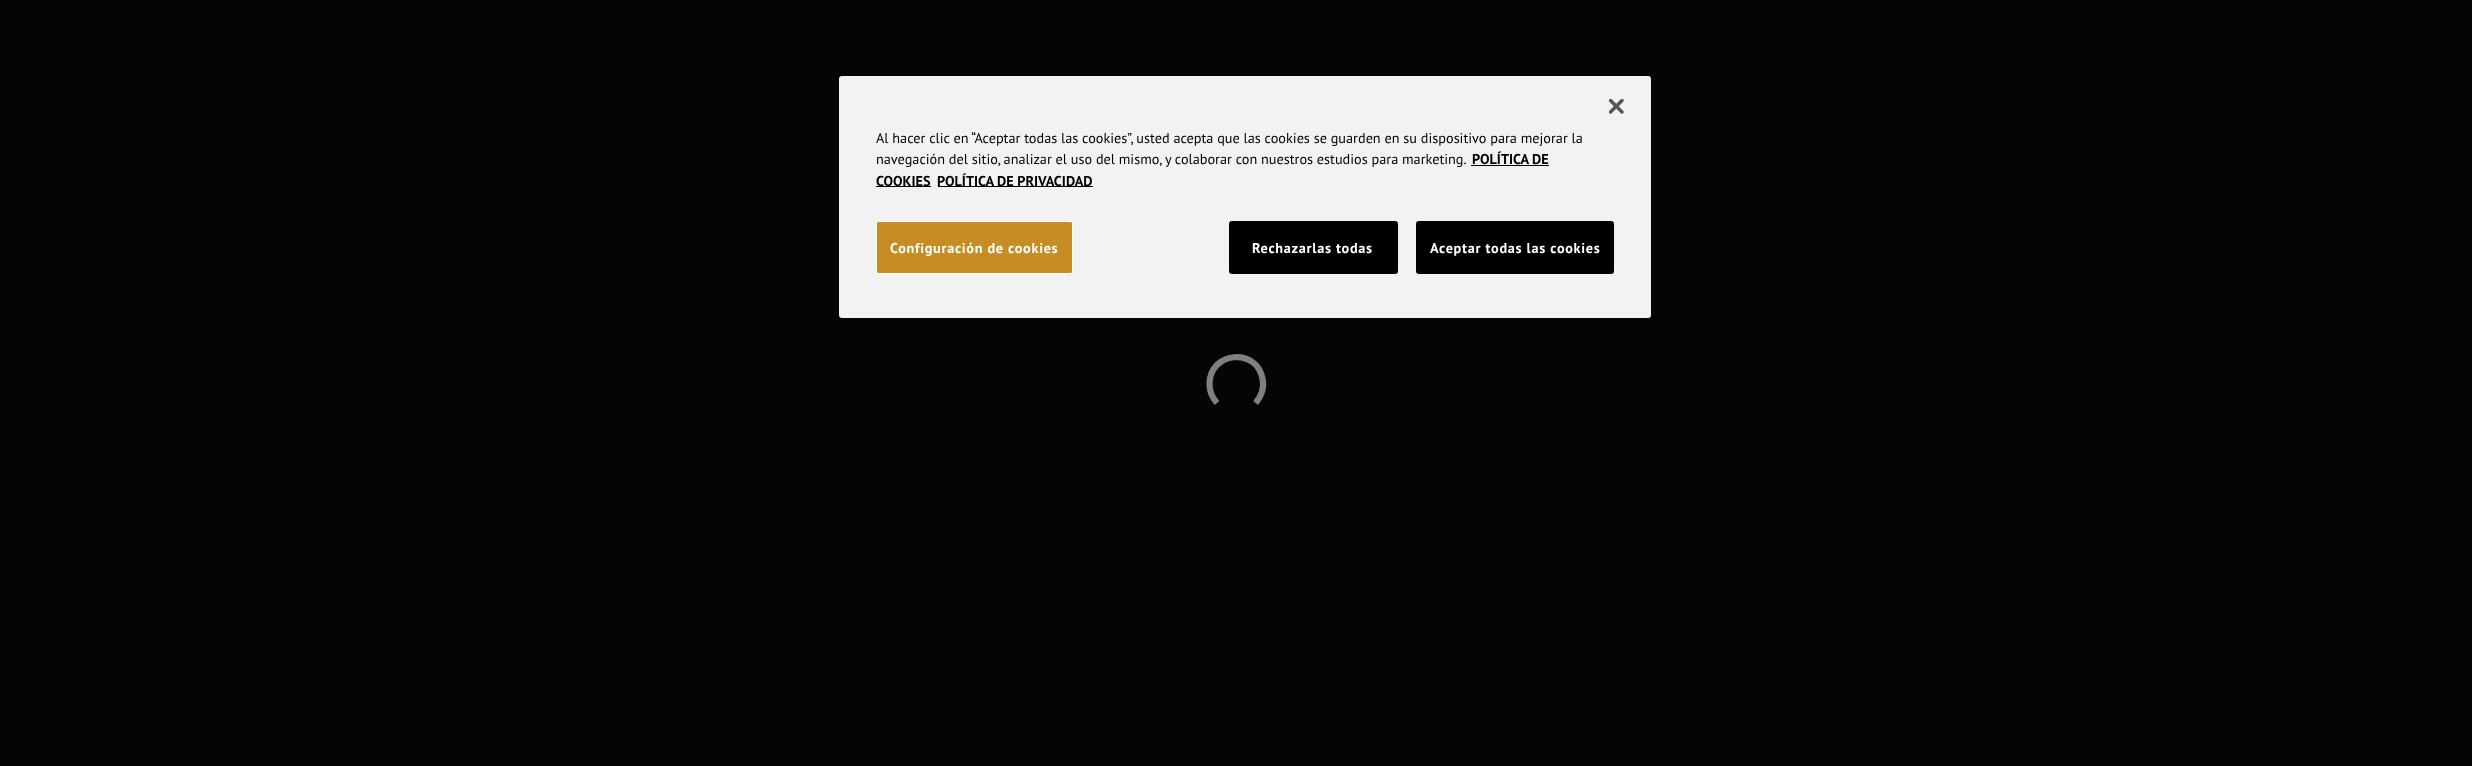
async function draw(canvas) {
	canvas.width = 2472;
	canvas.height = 766;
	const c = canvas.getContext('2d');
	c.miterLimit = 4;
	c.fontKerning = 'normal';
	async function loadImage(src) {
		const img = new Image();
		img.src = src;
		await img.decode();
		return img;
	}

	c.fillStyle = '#050505';
	c.fillRect(0, 0, 2472, 766);
	c.fillStyle = '#f2f2f2';
	c.beginPath();
	c.roundRect(839, 76, 812, 242, 3);
	c.fill();
	c.drawImage(await loadImage('img1.png'), 1609, 99, 15, 15);
	c.font = '14.25px PT Sans';
	c.fillStyle = '#000';
	c.fillText('Al hacer clic en “Aceptar todas las cookies”, usted acepta que las cookies se guarden en su dispositivo para mejorar la', 876, 143);
	c.fillText('navegación del sitio, analizar el uso del mismo, y colaborar con nuestros estudios para marketing.', 876, 164);
	c.font = 'bold 14.25px PT Sans';
	c.fillText('POLÍTICA DE', 1472, 164);
	c.fillRect(1471, 165, 78, 1);
	c.fillRect(876, 186, 55, 1);
	c.fillText('COOKIES', 876, 186);
	c.fillRect(938, 186, 155, 1);
	c.fillText('POLÍTICA DE PRIVACIDAD', 937, 186);
	c.fillStyle = '#c68d24';
	c.beginPath();
	c.roundRect(876.5, 221.5, 196, 52, 2);
	c.fill();
	c.strokeStyle = '#fff';
	c.stroke();
	c.letterSpacing = '0.7px';
	c.fillStyle = '#fff';
	c.fillText('Configuración de cookies', 890, 253);
	c.fillStyle = '#000';
	c.beginPath();
	c.roundRect(1229.5, 221.5, 168, 52, 2);
	c.fill();
	c.strokeStyle = '#000';
	c.stroke();
	c.fillStyle = '#fff';
	c.fillText('Rechazarlas todas', 1252, 253);
	c.fillStyle = '#000';
	c.beginPath();
	c.roundRect(1416.5, 221.5, 197, 52, 2);
	c.fill();
	c.stroke();
	c.fillStyle = '#fff';
	c.fillText('Aceptar todas las cookies', 1430, 253);
	c.beginPath();
	c.moveTo(1217, 403);
	c.bezierCurveTo(1212, 397.5, 1209.5, 391, 1209.5, 384);
	c.bezierCurveTo(1209.5, 351.5, 1256.5, 347, 1262.5, 378.5);
	c.bezierCurveTo(1264.5, 387, 1261.5, 396.5, 1255.5, 403);
	c.strokeStyle = '#808080';
	c.lineWidth = 6.2;
	c.stroke();
}

draw(document.querySelector('canvas'));
